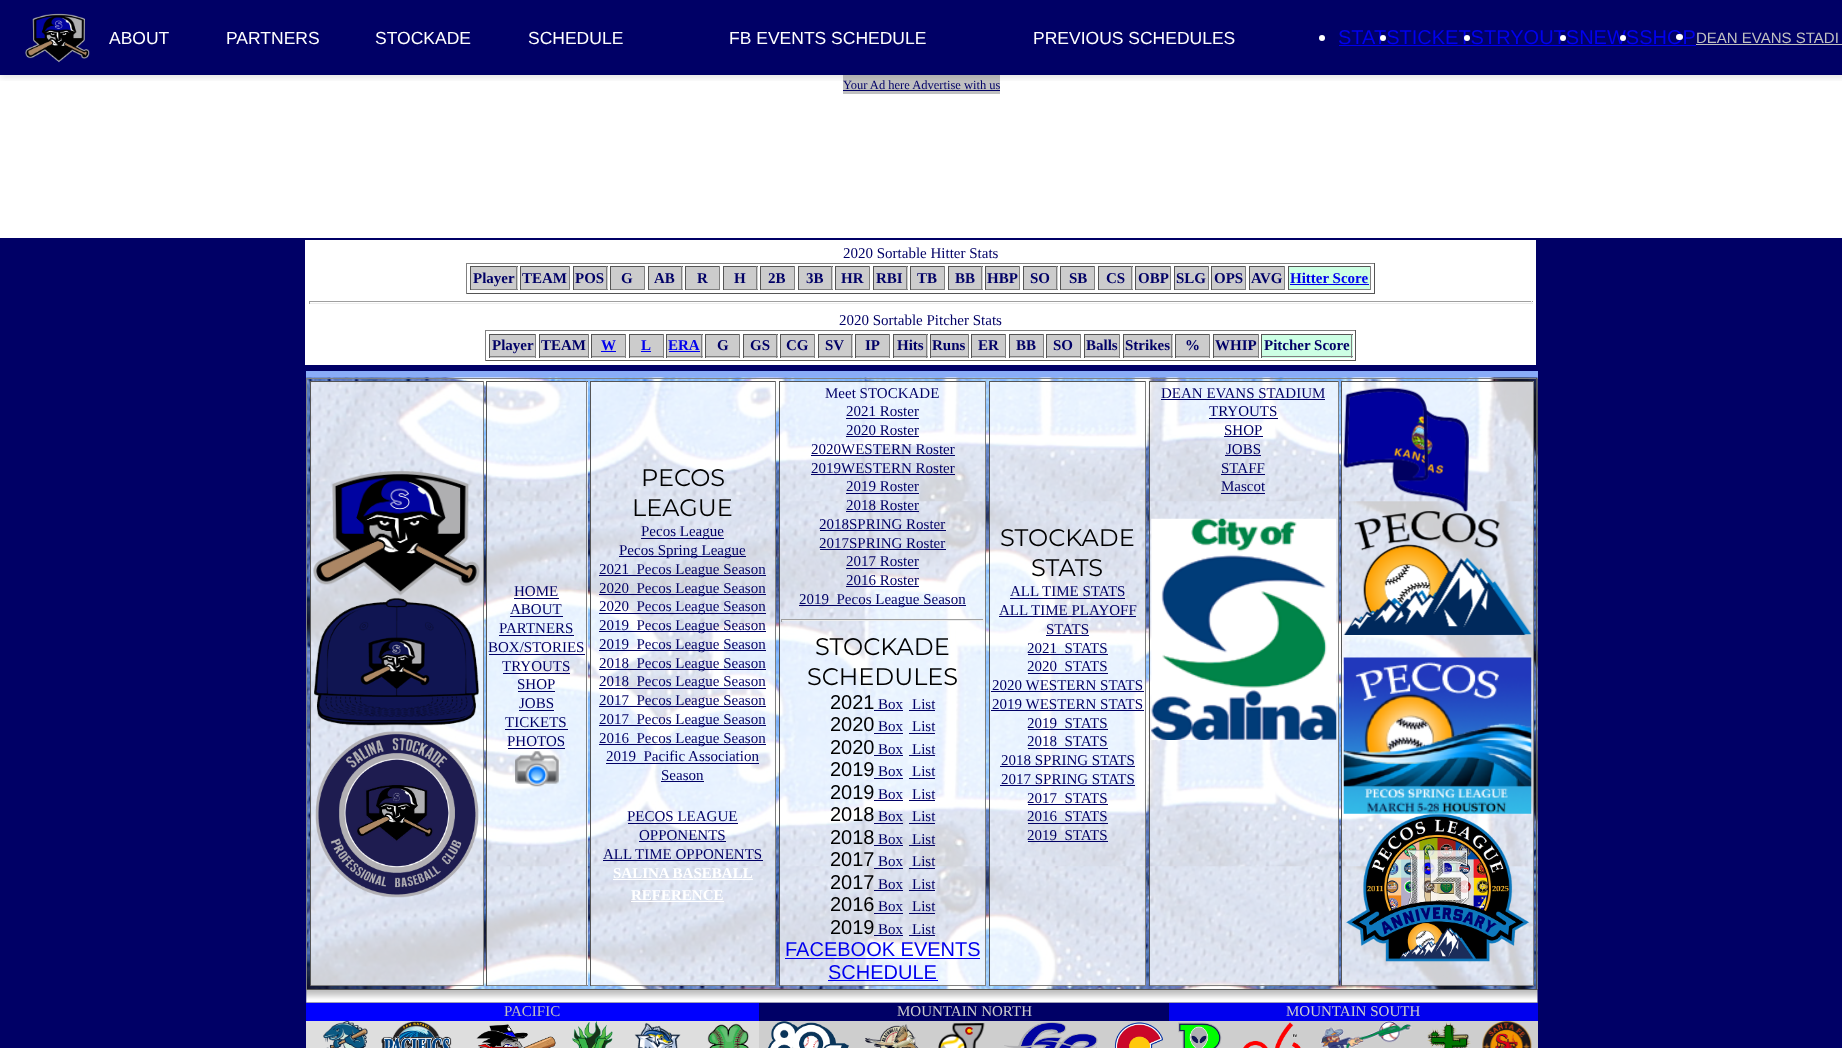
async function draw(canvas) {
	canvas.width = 1842;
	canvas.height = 1048;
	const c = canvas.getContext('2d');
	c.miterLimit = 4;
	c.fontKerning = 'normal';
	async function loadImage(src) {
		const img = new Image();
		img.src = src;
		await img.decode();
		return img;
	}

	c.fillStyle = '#006';
	c.fillRect(0, 0, 1842, 1048);
	c.fillStyle = '#fff';
	c.fillRect(0, 75, 1842, 163);
	c.fillStyle = '#c0c0c0';
	c.fillRect(843, 75, 157, 19);
	c.save();
	c.beginPath();
	c.rect(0, 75, 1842, 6);
	c.clip();
	c.fillStyle = '#0000001a';
	c.filter = 'blur(3px)';
	c.beginPath();
	c.rect(0, 3, 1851, 75);
	c.fill();
	c.filter = 'none';
	c.restore();
	c.drawImage(await loadImage('img1.png'), 25, 13, 65, 50);
	c.font = '17.5px Liberation Sans';
	c.fillStyle = '#fff';
	for (const [text, x, y] of [
		['ABOUT', 109, 44],
		['PARTNERS', 226, 44],
		['STOCKADE', 375, 44],
		['SCHEDULE', 528, 44],
		['FB EVENTS SCHEDULE', 729, 44],
		['PREVIOUS SCHEDULES', 1033, 44],
	]) {
		c.fillText(text, x, y);
	}
	c.beginPath();
	c.arc(1322, 38, 3, 0, 2 * Math.PI);
	c.fill();
	c.font = '20px Liberation Sans';
	c.fillStyle = '#00e';
	c.fillText('STATSTICKETSTRYOUTSNEWSSHOP', 1338, 44);
	c.fillRect(1339, 45, 357, 1);
	c.fillStyle = '#fff';
	c.beginPath();
	c.roundRect(1676, 34, 7, 6, 3);
	c.fill();
	c.font = '15px Liberation Sans';
	c.fillStyle = '#c0c0c0';
	c.fillText('DEAN EVANS STADI', 1696, 43);
	c.fillRect(1696, 44, 146, 1);
	c.fillStyle = '#fff';
	c.beginPath();
	c.arc(1383, 38, 3, 0, 2 * Math.PI);
	c.fill();
	c.beginPath();
	c.arc(1467, 38, 3, 0, 2 * Math.PI);
	c.fill();
	c.beginPath();
	c.arc(1563, 38, 3, 0, 2 * Math.PI);
	c.fill();
	c.beginPath();
	c.arc(1623, 38, 3, 0, 2 * Math.PI);
	c.fill();
	c.font = '12.5px Liberation Serif';
	c.fillStyle = '#006';
	c.fillText('Your Ad here Advertise with us', 843, 89);
	c.fillRect(843, 90, 157, 1);
	c.fillStyle = '#fff';
	c.fillRect(305, 240, 1231, 125);
	c.font = '15px Liberation Serif';
	c.fillStyle = '#006';
	c.fillText('2020 Sortable Hitter Stats', 843, 258);
	for (const [x, y, w, h, color] of [
		[466, 263, 909, 1, '#808080'],
		[1374, 263, 1, 31, '#555'],
		[466, 293, 909, 1, '#555'],
		[466, 263, 1, 31, '#808080'],
		[471, 267, 47, 22, '#ccc'],
		[470, 266, 48, 1, '#555'],
		[516, 266, 1, 24, '#808080'],
		[470, 289, 48, 1, '#808080'],
		[470, 266, 1, 24, '#555'],
	]) {
		c.fillStyle = color;
		c.fillRect(x, y, w, h);
	}
	c.font = 'bold 15px Liberation Serif';
	c.fillStyle = '#006';
	c.fillText('Player', 473, 283);
	for (const [x, y, w, h, color] of [
		[521, 267, 48, 22, '#ccc'],
		[520, 266, 50, 1, '#555'],
		[569, 266, 1, 24, '#808080'],
		[520, 289, 50, 1, '#808080'],
		[520, 266, 1, 24, '#555'],
	]) {
		c.fillStyle = color;
		c.fillRect(x, y, w, h);
	}
	c.fillStyle = '#006';
	c.fillText('TEAM', 522, 283);
	for (const [x, y, w, h, color] of [
		[574, 267, 34, 22, '#ccc'],
		[573, 266, 35, 1, '#555'],
		[606, 266, 1, 24, '#808080'],
		[573, 289, 35, 1, '#808080'],
		[573, 266, 1, 24, '#555'],
	]) {
		c.fillStyle = color;
		c.fillRect(x, y, w, h);
	}
	c.fillStyle = '#006';
	c.fillText('POS', 575, 283);
	for (const [x, y, w, h, color] of [
		[611, 267, 33, 22, '#ccc'],
		[610, 266, 35, 1, '#555'],
		[644, 266, 1, 24, '#808080'],
		[610, 289, 35, 1, '#808080'],
		[610, 266, 1, 24, '#555'],
	]) {
		c.fillStyle = color;
		c.fillRect(x, y, w, h);
	}
	c.fillStyle = '#006';
	c.fillText('G', 621, 283);
	for (const [x, y, w, h, color] of [
		[649, 267, 34, 22, '#ccc'],
		[648, 266, 35, 1, '#555'],
		[681, 266, 1, 24, '#808080'],
		[648, 289, 35, 1, '#808080'],
		[648, 266, 1, 24, '#555'],
	]) {
		c.fillStyle = color;
		c.fillRect(x, y, w, h);
	}
	c.fillStyle = '#006';
	c.fillText('AB', 654, 283);
	for (const [x, y, w, h, color] of [
		[686, 267, 33, 22, '#ccc'],
		[685, 266, 35, 1, '#555'],
		[719, 266, 1, 24, '#808080'],
		[685, 289, 35, 1, '#808080'],
		[685, 266, 1, 24, '#555'],
	]) {
		c.fillStyle = color;
		c.fillRect(x, y, w, h);
	}
	c.fillStyle = '#006';
	c.fillText('R', 697, 283);
	for (const [x, y, w, h, color] of [
		[724, 267, 34, 22, '#ccc'],
		[723, 266, 35, 1, '#555'],
		[756, 266, 1, 24, '#808080'],
		[723, 289, 35, 1, '#808080'],
		[723, 266, 1, 24, '#555'],
	]) {
		c.fillStyle = color;
		c.fillRect(x, y, w, h);
	}
	c.fillStyle = '#006';
	c.fillText('H', 734, 283);
	for (const [x, y, w, h, color] of [
		[761, 267, 33, 22, '#ccc'],
		[760, 266, 35, 1, '#555'],
		[794, 266, 1, 24, '#808080'],
		[760, 289, 35, 1, '#808080'],
		[760, 266, 1, 24, '#555'],
	]) {
		c.fillStyle = color;
		c.fillRect(x, y, w, h);
	}
	c.fillStyle = '#006';
	c.fillText('2B', 768, 283);
	for (const [x, y, w, h, color] of [
		[799, 267, 34, 22, '#ccc'],
		[798, 266, 35, 1, '#555'],
		[831, 266, 1, 24, '#808080'],
		[798, 289, 35, 1, '#808080'],
		[798, 266, 1, 24, '#555'],
	]) {
		c.fillStyle = color;
		c.fillRect(x, y, w, h);
	}
	c.fillStyle = '#006';
	c.fillText('3B', 806, 283);
	for (const [x, y, w, h, color] of [
		[836, 267, 33, 22, '#ccc'],
		[835, 266, 35, 1, '#555'],
		[869, 266, 1, 24, '#808080'],
		[835, 289, 35, 1, '#808080'],
		[835, 266, 1, 24, '#555'],
	]) {
		c.fillStyle = color;
		c.fillRect(x, y, w, h);
	}
	c.fillStyle = '#006';
	c.fillText('HR', 841, 283);
	for (const [x, y, w, h, color] of [
		[874, 267, 34, 22, '#ccc'],
		[873, 266, 35, 1, '#555'],
		[906, 266, 1, 24, '#808080'],
		[873, 289, 35, 1, '#808080'],
		[873, 266, 1, 24, '#555'],
	]) {
		c.fillStyle = color;
		c.fillRect(x, y, w, h);
	}
	c.fillStyle = '#006';
	c.fillText('RBI', 876, 283);
	for (const [x, y, w, h, color] of [
		[911, 267, 33, 22, '#ccc'],
		[910, 266, 35, 1, '#555'],
		[944, 266, 1, 24, '#808080'],
		[910, 289, 35, 1, '#808080'],
		[910, 266, 1, 24, '#555'],
	]) {
		c.fillStyle = color;
		c.fillRect(x, y, w, h);
	}
	c.fillStyle = '#006';
	c.fillText('TB', 917, 283);
	for (const [x, y, w, h, color] of [
		[949, 267, 34, 22, '#ccc'],
		[948, 266, 35, 1, '#555'],
		[981, 266, 1, 24, '#808080'],
		[948, 289, 35, 1, '#808080'],
		[948, 266, 1, 24, '#555'],
	]) {
		c.fillStyle = color;
		c.fillRect(x, y, w, h);
	}
	c.fillStyle = '#006';
	c.fillText('BB', 955, 283);
	for (const [x, y, w, h, color] of [
		[986, 267, 33, 22, '#ccc'],
		[985, 266, 35, 1, '#555'],
		[1019, 266, 1, 24, '#808080'],
		[985, 289, 35, 1, '#808080'],
		[985, 266, 1, 24, '#555'],
	]) {
		c.fillStyle = color;
		c.fillRect(x, y, w, h);
	}
	c.fillStyle = '#006';
	c.fillText('HBP', 987, 283);
	for (const [x, y, w, h, color] of [
		[1024, 267, 34, 22, '#ccc'],
		[1023, 266, 35, 1, '#555'],
		[1056, 266, 1, 24, '#808080'],
		[1023, 289, 35, 1, '#808080'],
		[1023, 266, 1, 24, '#555'],
	]) {
		c.fillStyle = color;
		c.fillRect(x, y, w, h);
	}
	c.fillStyle = '#006';
	c.fillText('SO', 1030, 283);
	for (const [x, y, w, h, color] of [
		[1061, 267, 33, 22, '#ccc'],
		[1060, 266, 35, 1, '#555'],
		[1094, 266, 1, 24, '#808080'],
		[1060, 289, 35, 1, '#808080'],
		[1060, 266, 1, 24, '#555'],
	]) {
		c.fillStyle = color;
		c.fillRect(x, y, w, h);
	}
	c.fillStyle = '#006';
	c.fillText('SB', 1069, 283);
	for (const [x, y, w, h, color] of [
		[1099, 267, 34, 22, '#ccc'],
		[1098, 266, 35, 1, '#555'],
		[1131, 266, 1, 24, '#808080'],
		[1098, 289, 35, 1, '#808080'],
		[1098, 266, 1, 24, '#555'],
	]) {
		c.fillStyle = color;
		c.fillRect(x, y, w, h);
	}
	c.fillStyle = '#006';
	c.fillText('CS', 1106, 283);
	for (const [x, y, w, h, color] of [
		[1136, 267, 34, 22, '#ccc'],
		[1135, 266, 36, 1, '#555'],
		[1170, 266, 1, 24, '#808080'],
		[1135, 289, 36, 1, '#808080'],
		[1135, 266, 1, 24, '#555'],
	]) {
		c.fillStyle = color;
		c.fillRect(x, y, w, h);
	}
	c.fillStyle = '#006';
	c.fillText('OBP', 1138, 283);
	for (const [x, y, w, h, color] of [
		[1175, 267, 33, 22, '#ccc'],
		[1174, 266, 35, 1, '#555'],
		[1208, 266, 1, 24, '#808080'],
		[1174, 289, 35, 1, '#808080'],
		[1174, 266, 1, 24, '#555'],
	]) {
		c.fillStyle = color;
		c.fillRect(x, y, w, h);
	}
	c.fillStyle = '#006';
	c.fillText('SLG', 1176, 283);
	for (const [x, y, w, h, color] of [
		[1212, 267, 33, 22, '#ccc'],
		[1211, 266, 35, 1, '#555'],
		[1245, 266, 1, 24, '#808080'],
		[1211, 289, 35, 1, '#808080'],
		[1211, 266, 1, 24, '#555'],
	]) {
		c.fillStyle = color;
		c.fillRect(x, y, w, h);
	}
	c.fillStyle = '#006';
	c.fillText('OPS', 1214, 283);
	for (const [x, y, w, h, color] of [
		[1250, 267, 34, 22, '#ccc'],
		[1249, 266, 36, 1, '#555'],
		[1284, 266, 1, 24, '#808080'],
		[1249, 289, 36, 1, '#808080'],
		[1249, 266, 1, 24, '#555'],
	]) {
		c.fillStyle = color;
		c.fillRect(x, y, w, h);
	}
	c.fillStyle = '#006';
	c.fillText('AVG', 1251, 283);
	for (const [x, y, w, h, color] of [
		[1289, 267, 81, 22, '#ccffe4'],
		[1288, 266, 83, 1, '#555'],
		[1370, 266, 1, 24, '#808080'],
		[1288, 289, 83, 1, '#808080'],
		[1288, 266, 1, 24, '#555'],
	]) {
		c.fillStyle = color;
		c.fillRect(x, y, w, h);
	}
	c.fillStyle = '#00e';
	c.fillText('Hitter Score', 1290, 283);
	for (const [x, y, w, h, color] of [
		[1290, 284, 79, 1, '#00e'],
		[309, 301, 1224, 1, '#9f9f9f'],
		[1531, 301, 1, 3, '#eee'],
		[309, 303, 1224, 1, '#eee'],
		[309, 301, 1, 3, '#9f9f9f'],
	]) {
		c.fillStyle = color;
		c.fillRect(x, y, w, h);
	}
	c.font = '15px Liberation Serif';
	c.fillStyle = '#006';
	c.fillText('2020 Sortable Pitcher Stats', 839, 325);
	for (const [x, y, w, h, color] of [
		[485, 330, 871, 1, '#808080'],
		[1355, 330, 1, 31, '#555'],
		[485, 360, 871, 1, '#555'],
		[485, 330, 1, 31, '#808080'],
		[490, 335, 45, 23, '#ccc'],
		[489, 334, 47, 1, '#555'],
		[535, 334, 1, 24, '#808080'],
		[489, 356, 47, 1, '#808080'],
		[489, 334, 1, 24, '#555'],
	]) {
		c.fillStyle = color;
		c.fillRect(x, y, w, h);
	}
	c.font = 'bold 15px Liberation Serif';
	c.fillStyle = '#006';
	c.fillText('Player', 492, 350);
	for (const [x, y, w, h, color] of [
		[540, 335, 48, 23, '#ccc'],
		[539, 334, 50, 1, '#555'],
		[588, 334, 1, 24, '#808080'],
		[539, 356, 50, 1, '#808080'],
		[539, 334, 1, 24, '#555'],
	]) {
		c.fillStyle = color;
		c.fillRect(x, y, w, h);
	}
	c.fillStyle = '#006';
	c.fillText('TEAM', 541, 350);
	for (const [x, y, w, h, color] of [
		[592, 335, 33, 23, '#ccc'],
		[591, 334, 35, 1, '#555'],
		[625, 334, 1, 24, '#808080'],
		[591, 356, 35, 1, '#808080'],
		[591, 334, 1, 24, '#555'],
	]) {
		c.fillStyle = color;
		c.fillRect(x, y, w, h);
	}
	c.fillStyle = '#00e';
	c.fillText('W', 601, 350);
	for (const [x, y, w, h, color] of [
		[601, 351, 15, 1, '#00e'],
		[630, 335, 33, 23, '#ccc'],
		[629, 334, 35, 1, '#555'],
		[663, 334, 1, 24, '#808080'],
		[629, 356, 35, 1, '#808080'],
		[629, 334, 1, 24, '#555'],
	]) {
		c.fillStyle = color;
		c.fillRect(x, y, w, h);
	}
	c.fillStyle = '#00e';
	c.fillText('L', 641, 350);
	for (const [x, y, w, h, color] of [
		[641, 351, 10, 1, '#00e'],
		[667, 335, 36, 23, '#ccc'],
		[666, 334, 37, 1, '#555'],
		[701, 334, 1, 24, '#808080'],
		[666, 356, 37, 1, '#808080'],
		[666, 334, 1, 24, '#555'],
	]) {
		c.fillStyle = color;
		c.fillRect(x, y, w, h);
	}
	c.fillStyle = '#00e';
	c.fillText('ERA', 668, 350);
	for (const [x, y, w, h, color] of [
		[669, 351, 31, 1, '#00e'],
		[706, 335, 33, 23, '#ccc'],
		[705, 334, 35, 1, '#555'],
		[739, 334, 1, 24, '#808080'],
		[705, 356, 35, 1, '#808080'],
		[705, 334, 1, 24, '#555'],
	]) {
		c.fillStyle = color;
		c.fillRect(x, y, w, h);
	}
	c.fillStyle = '#006';
	c.fillText('G', 717, 350);
	for (const [x, y, w, h, color] of [
		[744, 335, 34, 23, '#ccc'],
		[743, 334, 35, 1, '#555'],
		[776, 334, 1, 24, '#808080'],
		[743, 356, 35, 1, '#808080'],
		[743, 334, 1, 24, '#555'],
	]) {
		c.fillStyle = color;
		c.fillRect(x, y, w, h);
	}
	c.fillStyle = '#006';
	c.fillText('GS', 750, 350);
	for (const [x, y, w, h, color] of [
		[781, 335, 33, 23, '#ccc'],
		[780, 334, 35, 1, '#555'],
		[814, 334, 1, 24, '#808080'],
		[780, 356, 35, 1, '#808080'],
		[780, 334, 1, 24, '#555'],
	]) {
		c.fillStyle = color;
		c.fillRect(x, y, w, h);
	}
	c.fillStyle = '#006';
	c.fillText('CG', 786, 350);
	for (const [x, y, w, h, color] of [
		[819, 335, 34, 23, '#ccc'],
		[818, 334, 35, 1, '#555'],
		[851, 334, 1, 24, '#808080'],
		[818, 356, 35, 1, '#808080'],
		[818, 334, 1, 24, '#555'],
	]) {
		c.fillStyle = color;
		c.fillRect(x, y, w, h);
	}
	c.fillStyle = '#006';
	c.fillText('SV', 825, 350);
	for (const [x, y, w, h, color] of [
		[856, 335, 33, 23, '#ccc'],
		[855, 334, 35, 1, '#555'],
		[889, 334, 1, 24, '#808080'],
		[855, 356, 35, 1, '#808080'],
		[855, 334, 1, 24, '#555'],
	]) {
		c.fillStyle = color;
		c.fillRect(x, y, w, h);
	}
	c.fillStyle = '#006';
	c.fillText('IP', 865, 350);
	for (const [x, y, w, h, color] of [
		[894, 335, 34, 23, '#ccc'],
		[893, 334, 35, 1, '#555'],
		[926, 334, 1, 24, '#808080'],
		[893, 356, 35, 1, '#808080'],
		[893, 334, 1, 24, '#555'],
	]) {
		c.fillStyle = color;
		c.fillRect(x, y, w, h);
	}
	c.fillStyle = '#006';
	c.fillText('Hits', 897, 350);
	for (const [x, y, w, h, color] of [
		[931, 335, 37, 23, '#ccc'],
		[930, 334, 39, 1, '#555'],
		[968, 334, 1, 24, '#808080'],
		[930, 356, 39, 1, '#808080'],
		[930, 334, 1, 24, '#555'],
	]) {
		c.fillStyle = color;
		c.fillRect(x, y, w, h);
	}
	c.fillStyle = '#006';
	c.fillText('Runs', 932, 350);
	for (const [x, y, w, h, color] of [
		[972, 335, 33, 23, '#ccc'],
		[971, 334, 35, 1, '#555'],
		[1005, 334, 1, 24, '#808080'],
		[971, 356, 35, 1, '#808080'],
		[971, 334, 1, 24, '#555'],
	]) {
		c.fillStyle = color;
		c.fillRect(x, y, w, h);
	}
	c.fillStyle = '#006';
	c.fillText('ER', 978, 350);
	for (const [x, y, w, h, color] of [
		[1010, 335, 33, 23, '#ccc'],
		[1009, 334, 35, 1, '#555'],
		[1043, 334, 1, 24, '#808080'],
		[1009, 356, 35, 1, '#808080'],
		[1009, 334, 1, 24, '#555'],
	]) {
		c.fillStyle = color;
		c.fillRect(x, y, w, h);
	}
	c.fillStyle = '#006';
	c.fillText('BB', 1016, 350);
	for (const [x, y, w, h, color] of [
		[1047, 335, 33, 23, '#ccc'],
		[1046, 334, 35, 1, '#555'],
		[1080, 334, 1, 24, '#808080'],
		[1046, 356, 35, 1, '#808080'],
		[1046, 334, 1, 24, '#555'],
	]) {
		c.fillStyle = color;
		c.fillRect(x, y, w, h);
	}
	c.fillStyle = '#006';
	c.fillText('SO', 1053, 350);
	for (const [x, y, w, h, color] of [
		[1085, 335, 34, 23, '#ccc'],
		[1084, 334, 36, 1, '#555'],
		[1119, 334, 1, 24, '#808080'],
		[1084, 356, 36, 1, '#808080'],
		[1084, 334, 1, 24, '#555'],
	]) {
		c.fillStyle = color;
		c.fillRect(x, y, w, h);
	}
	c.fillStyle = '#006';
	c.fillText('Balls', 1086, 350);
	for (const [x, y, w, h, color] of [
		[1124, 335, 49, 23, '#ccc'],
		[1123, 334, 50, 1, '#555'],
		[1171, 334, 1, 24, '#808080'],
		[1123, 356, 50, 1, '#808080'],
		[1123, 334, 1, 24, '#555'],
	]) {
		c.fillStyle = color;
		c.fillRect(x, y, w, h);
	}
	c.fillStyle = '#006';
	c.fillText('Strikes', 1125, 350);
	for (const [x, y, w, h, color] of [
		[1176, 335, 33, 23, '#ccc'],
		[1175, 334, 35, 1, '#555'],
		[1209, 334, 1, 24, '#808080'],
		[1175, 356, 35, 1, '#808080'],
		[1175, 334, 1, 24, '#555'],
	]) {
		c.fillStyle = color;
		c.fillRect(x, y, w, h);
	}
	c.fillStyle = '#006';
	c.fillText('%', 1185, 350);
	for (const [x, y, w, h, color] of [
		[1214, 335, 44, 23, '#ccc'],
		[1213, 334, 46, 1, '#555'],
		[1258, 334, 1, 24, '#808080'],
		[1213, 356, 46, 1, '#808080'],
		[1213, 334, 1, 24, '#555'],
	]) {
		c.fillStyle = color;
		c.fillRect(x, y, w, h);
	}
	c.fillStyle = '#006';
	c.fillText('WHIP', 1215, 350);
	for (const [x, y, w, h, color] of [
		[1262, 335, 91, 23, '#ccffe4'],
		[1261, 334, 92, 1, '#555'],
		[1351, 334, 1, 24, '#808080'],
		[1261, 356, 92, 1, '#808080'],
		[1261, 334, 1, 24, '#555'],
	]) {
		c.fillStyle = color;
		c.fillRect(x, y, w, h);
	}
	c.fillStyle = '#006';
	c.fillText('Pitcher Score', 1264, 350);
	c.fillStyle = '#89acf7';
	c.fillRect(306, 371, 1232, 7);
	c.fillStyle = '#8d8d8d';
	c.fillRect(1537, 379, 1, 610);
	c.drawImage(await loadImage('img2.png'), 306, 377, 1232, 612);
	for (const [x, y, w, h, color] of [
		[306, 378, 1232, 1, '#808080'],
		[1536, 378, 1, 612, '#555'],
		[306, 989, 1232, 1, '#555'],
		[306, 378, 1, 612, '#808080'],
		[311, 382, 172, 603, '#ffffffcc'],
		[310, 381, 174, 1, '#555'],
		[483, 381, 1, 605, '#808080'],
		[310, 985, 174, 1, '#808080'],
		[310, 381, 1, 605, '#555'],
	]) {
		c.fillStyle = color;
		c.fillRect(x, y, w, h);
	}
	c.drawImage(await loadImage('img3.png'), 313, 471, 167, 125);
	c.drawImage(await loadImage('img4.png'), 314, 597, 165, 129);
	c.drawImage(await loadImage('img5.png'), 315, 731, 164, 167);
	for (const [x, y, w, h, color] of [
		[780, 382, 205, 603, '#ffffffcc'],
		[779, 381, 207, 1, '#555'],
		[985, 381, 1, 605, '#808080'],
		[779, 985, 207, 1, '#808080'],
		[779, 381, 1, 605, '#555'],
	]) {
		c.fillStyle = color;
		c.fillRect(x, y, w, h);
	}
	c.font = '15px Liberation Serif';
	c.fillStyle = '#006';
	c.fillText('Meet STOCKADE', 825, 398);
	c.fillText('2021 Roster', 846, 416);
	c.fillRect(846, 418, 73, 1);
	c.fillText('2020 Roster', 846, 435);
	c.fillRect(846, 436, 73, 1);
	c.fillText('2020WESTERN Roster', 811, 454);
	c.fillRect(811, 455, 144, 1);
	c.fillText('2019WESTERN Roster', 811, 473);
	c.fillRect(811, 474, 144, 1);
	c.fillText('2019 Roster', 846, 491);
	c.fillRect(846, 493, 73, 1);
	c.fillText('2018 Roster', 846, 510);
	c.fillRect(846, 511, 73, 1);
	c.fillText('2018SPRING Roster', 819, 529);
	c.fillRect(820, 530, 126, 1);
	c.fillText('2017SPRING Roster', 819, 548);
	c.fillRect(820, 549, 126, 1);
	c.fillText('2017 Roster', 846, 566);
	c.fillRect(846, 568, 73, 1);
	c.fillText('2016 Roster', 846, 585);
	c.fillRect(846, 586, 73, 1);
	c.fillRect(799, 605, 167, 1);
	c.fillText('2019  Pecos League Season', 799, 604);
	for (const [x, y, w, h, color] of [
		[781, 619, 203, 1, '#9f9f9f'],
		[983, 619, 1, 3, '#eee'],
		[781, 620, 203, 1, '#eee'],
		[781, 619, 1, 3, '#9f9f9f'],
	]) {
		c.fillStyle = color;
		c.fillRect(x, y, w, h);
	}
	c.font = '24px Montserrat';
	c.fillStyle = '#000';
	c.fillText('STOCKADE', 815, 655);
	c.fillText('SCHEDULES', 807, 685);
	c.font = '20px Liberation Sans';
	c.fillText('2021', 830, 709);
	c.font = '15px Liberation Serif';
	c.fillStyle = '#006';
	c.fillText('Box', 878, 709);
	c.fillRect(874, 710, 29, 1);
	c.fillText('List', 912, 709);
	c.fillRect(909, 710, 26, 1);
	c.font = '20px Liberation Sans';
	c.fillStyle = '#000';
	c.fillText('2020', 830, 731);
	c.font = '15px Liberation Serif';
	c.fillStyle = '#006';
	c.fillText('Box', 878, 731);
	c.fillRect(874, 733, 29, 1);
	c.fillText('List', 912, 731);
	c.fillRect(909, 733, 26, 1);
	c.font = '20px Liberation Sans';
	c.fillStyle = '#000';
	c.fillText('2020', 830, 754);
	c.font = '15px Liberation Serif';
	c.fillStyle = '#006';
	c.fillText('Box', 878, 754);
	c.fillRect(874, 755, 29, 1);
	c.fillText('List', 912, 754);
	c.fillRect(909, 755, 26, 1);
	c.font = '20px Liberation Sans';
	c.fillStyle = '#000';
	c.fillText('2019', 830, 776);
	c.font = '15px Liberation Serif';
	c.fillStyle = '#006';
	c.fillText('Box', 878, 776);
	c.fillRect(874, 778, 29, 1);
	c.fillText('List', 912, 776);
	c.fillRect(909, 778, 26, 1);
	c.font = '20px Liberation Sans';
	c.fillStyle = '#000';
	c.fillText('2019', 830, 799);
	c.font = '15px Liberation Serif';
	c.fillStyle = '#006';
	c.fillText('Box', 878, 799);
	c.fillRect(874, 800, 29, 1);
	c.fillText('List', 912, 799);
	c.fillRect(909, 800, 26, 1);
	c.font = '20px Liberation Sans';
	c.fillStyle = '#000';
	c.fillText('2018', 830, 821);
	c.font = '15px Liberation Serif';
	c.fillStyle = '#006';
	c.fillText('Box', 878, 821);
	c.fillRect(874, 823, 29, 1);
	c.fillText('List', 912, 821);
	c.fillRect(909, 823, 26, 1);
	c.font = '20px Liberation Sans';
	c.fillStyle = '#000';
	c.fillText('2018', 830, 844);
	c.font = '15px Liberation Serif';
	c.fillStyle = '#006';
	c.fillText('Box', 878, 844);
	c.fillRect(874, 845, 29, 1);
	c.fillText('List', 912, 844);
	c.fillRect(909, 845, 26, 1);
	c.font = '20px Liberation Sans';
	c.fillStyle = '#000';
	c.fillText('2017', 830, 866);
	c.font = '15px Liberation Serif';
	c.fillStyle = '#006';
	c.fillText('Box', 878, 866);
	c.fillRect(874, 868, 29, 1);
	c.fillText('List', 912, 866);
	c.fillRect(909, 868, 26, 1);
	c.font = '20px Liberation Sans';
	c.fillStyle = '#000';
	c.fillText('2017', 830, 889);
	c.font = '15px Liberation Serif';
	c.fillStyle = '#006';
	c.fillText('Box', 878, 889);
	c.fillRect(874, 890, 29, 1);
	c.fillText('List', 912, 889);
	c.fillRect(909, 890, 26, 1);
	c.font = '20px Liberation Sans';
	c.fillStyle = '#000';
	c.fillText('2016', 830, 911);
	c.font = '15px Liberation Serif';
	c.fillStyle = '#006';
	c.fillText('Box', 878, 911);
	c.fillRect(874, 913, 29, 1);
	c.fillText('List', 912, 911);
	c.fillRect(909, 913, 26, 1);
	c.font = '20px Liberation Sans';
	c.fillStyle = '#000';
	c.fillText('2019', 830, 934);
	c.font = '15px Liberation Serif';
	c.fillStyle = '#006';
	c.fillText('Box', 878, 934);
	c.fillRect(874, 935, 29, 1);
	c.fillText('List', 912, 934);
	c.fillRect(909, 935, 26, 1);
	c.font = '20px Liberation Sans';
	c.fillStyle = '#00e';
	c.fillText('FACEBOOK EVENTS', 785, 956);
	c.fillRect(785, 958, 195, 1);
	c.fillText('SCHEDULE', 828, 979);
	for (const [x, y, w, h, color] of [
		[828, 980, 110, 1, '#00e'],
		[1150, 382, 188, 603, '#ffffffcc'],
		[1149, 381, 190, 1, '#555'],
		[1338, 381, 1, 605, '#808080'],
		[1149, 985, 190, 1, '#808080'],
		[1149, 381, 1, 605, '#555'],
	]) {
		c.fillStyle = color;
		c.fillRect(x, y, w, h);
	}
	c.font = '15px Liberation Serif';
	c.fillStyle = '#006';
	c.fillText('DEAN EVANS STADIUM', 1161, 398);
	c.fillRect(1161, 399, 164, 1);
	c.fillText('TRYOUTS', 1209, 416);
	c.fillRect(1209, 418, 69, 1);
	c.fillText('SHOP', 1224, 435);
	c.fillRect(1224, 436, 39, 1);
	c.fillText('JOBS', 1226, 454);
	c.fillRect(1225, 455, 36, 1);
	c.fillText('STAFF', 1221, 473);
	c.fillRect(1221, 474, 44, 1);
	c.fillText('Mascot', 1221, 491);
	c.fillRect(1221, 493, 44, 1);
	c.drawImage(await loadImage('img6.png'), 1151, 518, 186, 222);
	for (const [x, y, w, h, color] of [
		[1342, 382, 191, 603, '#ffffffcc'],
		[1341, 381, 193, 1, '#555'],
		[1533, 381, 1, 605, '#808080'],
		[1341, 985, 193, 1, '#808080'],
		[1341, 381, 1, 605, '#555'],
	]) {
		c.fillStyle = color;
		c.fillRect(x, y, w, h);
	}
	c.drawImage(await loadImage('img7.png'), 1343, 387, 126, 125);
	c.drawImage(await loadImage('img8.png'), 1343, 511, 189, 124);
	c.drawImage(await loadImage('img9.png'), 1343, 657, 189, 157);
	c.drawImage(await loadImage('img10.png'), 1346, 813, 184, 149);
	for (const [x, y, w, h, color] of [
		[487, 382, 101, 603, '#ffffffcc'],
		[486, 381, 102, 1, '#555'],
		[586, 381, 1, 605, '#808080'],
		[486, 985, 102, 1, '#808080'],
		[486, 381, 1, 605, '#555'],
	]) {
		c.fillStyle = color;
		c.fillRect(x, y, w, h);
	}
	c.fillStyle = '#006';
	c.fillText('HOME', 514, 596);
	c.fillRect(514, 598, 45, 1);
	c.fillText('ABOUT', 510, 614);
	c.fillRect(510, 616, 53, 1);
	c.fillText('PARTNERS', 499, 633);
	c.fillRect(499, 635, 75, 1);
	c.fillText('BOX/STORIES', 488, 652);
	c.fillRect(489, 654, 96, 1);
	c.fillText('TRYOUTS', 502, 671);
	c.fillRect(503, 673, 67, 1);
	c.fillText('SHOP', 517, 689);
	c.fillRect(518, 691, 37, 1);
	c.fillText('JOBS', 519, 708);
	c.fillRect(519, 710, 35, 1);
	c.fillText('TICKETS', 505, 727);
	c.fillRect(505, 729, 63, 1);
	c.fillText('PHOTOS', 507, 746);
	c.fillRect(508, 748, 57, 1);
	c.drawImage(await loadImage('img11.png'), 515, 751, 44, 36);
	for (const [x, y, w, h, color] of [
		[591, 382, 184, 603, '#ffffffcc'],
		[590, 381, 186, 1, '#555'],
		[775, 381, 1, 605, '#808080'],
		[590, 985, 186, 1, '#808080'],
		[590, 381, 1, 605, '#555'],
	]) {
		c.fillStyle = color;
		c.fillRect(x, y, w, h);
	}
	c.font = '24px Montserrat';
	c.fillStyle = '#000';
	c.fillText('PECOS', 641, 486);
	c.fillText('LEAGUE', 632, 516);
	c.fillStyle = '#006';
	c.fillRect(641, 538, 83, 1);
	c.font = '15px Liberation Serif';
	c.fillText('Pecos League', 641, 536);
	c.fillRect(619, 556, 127, 1);
	c.fillText('Pecos Spring League', 619, 555);
	c.fillRect(599, 575, 167, 1);
	c.fillText('2021  Pecos League Season', 599, 574);
	c.fillRect(599, 594, 167, 1);
	c.fillText('2020  Pecos League Season', 599, 593);
	c.fillRect(599, 613, 167, 1);
	c.fillText('2020  Pecos League Season', 599, 611);
	c.fillRect(599, 631, 167, 1);
	c.fillText('2019  Pecos League Season', 599, 630);
	c.fillRect(599, 650, 167, 1);
	c.fillText('2019  Pecos League Season', 599, 649);
	c.fillRect(599, 669, 167, 1);
	c.fillText('2018  Pecos League Season', 599, 668);
	c.fillRect(599, 688, 167, 1);
	c.fillText('2018  Pecos League Season', 599, 686);
	c.fillRect(599, 706, 167, 1);
	c.fillText('2017  Pecos League Season', 599, 705);
	c.fillRect(599, 725, 167, 1);
	c.fillText('2017  Pecos League Season', 599, 724);
	c.fillRect(599, 744, 167, 1);
	c.fillText('2016  Pecos League Season', 599, 743);
	c.fillText('2019  Pacific Association', 606, 761);
	c.fillRect(606, 763, 153, 1);
	c.fillText('Season', 661, 780);
	c.fillRect(661, 781, 43, 1);
	c.fillText('PECOS LEAGUE', 627, 821);
	c.fillRect(628, 823, 110, 1);
	c.fillText('OPPONENTS', 639, 840);
	c.fillRect(639, 841, 87, 1);
	c.fillText('ALL TIME OPPONENTS', 603, 859);
	c.fillRect(603, 860, 160, 1);
	c.font = 'bold 15px Liberation Serif';
	c.fillStyle = '#fff';
	c.fillText('SALINA BASEBALL', 613, 878);
	c.fillRect(613, 879, 140, 1);
	c.fillText('REFERENCE', 631, 900);
	for (const [x, y, w, h, color] of [
		[631, 901, 93, 1, '#fff'],
		[990, 382, 155, 603, '#ffffffcc'],
		[989, 381, 157, 1, '#555'],
		[1145, 381, 1, 605, '#808080'],
		[989, 985, 157, 1, '#808080'],
		[989, 381, 1, 605, '#555'],
	]) {
		c.fillStyle = color;
		c.fillRect(x, y, w, h);
	}
	c.font = '24px Montserrat';
	c.fillStyle = '#000';
	c.fillText('STOCKADE', 1000, 546);
	c.fillText('STATS', 1031, 576);
	c.font = '15px Liberation Serif';
	c.fillStyle = '#006';
	c.fillText('ALL TIME STATS', 1010, 596);
	c.fillRect(1010, 598, 115, 1);
	c.fillText('ALL TIME PLAYOFF', 999, 615);
	c.fillRect(999, 616, 137, 1);
	c.fillText('STATS', 1046, 634);
	c.fillRect(1046, 635, 43, 1);
	c.fillText('2021  STATS', 1027, 653);
	c.fillRect(1028, 654, 80, 1);
	c.fillText('2020  STATS', 1027, 671);
	c.fillRect(1028, 673, 80, 1);
	c.fillText('2020 WESTERN STATS', 992, 690);
	c.fillRect(991, 691, 153, 1);
	c.fillText('2019 WESTERN STATS', 992, 709);
	c.fillRect(991, 710, 153, 1);
	c.fillText('2019  STATS', 1027, 728);
	c.fillRect(1028, 729, 80, 1);
	c.fillText('2018  STATS', 1027, 746);
	c.fillRect(1028, 748, 80, 1);
	c.fillText('2018 SPRING STATS', 1001, 765);
	c.fillRect(1000, 766, 135, 1);
	c.fillText('2017 SPRING STATS', 1001, 784);
	c.fillRect(1000, 785, 135, 1);
	c.fillText('2017  STATS', 1027, 803);
	c.fillRect(1028, 804, 80, 1);
	c.fillText('2016  STATS', 1027, 821);
	c.fillRect(1028, 823, 80, 1);
	c.fillText('2019  STATS', 1027, 840);
	c.fillRect(1028, 841, 80, 1);
	c.drawImage(await loadImage('img12.png'), 306, 990, 1232, 13);
	c.drawImage(await loadImage('img13.png'), 306, 1002, 1232, 1);
	c.fillStyle = '#00f';
	c.fillRect(306, 1003, 453, 18);
	c.fillStyle = '#c0c0c0';
	c.fillText('PACIFIC', 504, 1016);
	c.fillStyle = '#cecece';
	c.fillText('MOUNTAIN NORTH', 897, 1016);
	c.fillStyle = '#00e';
	c.fillRect(1169, 1003, 369, 18);
	c.fillStyle = '#cecece';
	c.fillText('MOUNTAIN SOUTH', 1286, 1016);
	c.fillStyle = '#dedede';
	c.fillRect(306, 1021, 453, 27);
	c.drawImage(await loadImage('img14.png'), 323, 1021, 45, 27);
	c.drawImage(await loadImage('img15.png'), 381, 1021, 71, 27);
	c.drawImage(await loadImage('img16.png'), 572, 1021, 41, 27);
	c.fillStyle = '#cecece';
	c.fillRect(759, 1021, 779, 27);
	c.drawImage(await loadImage('img17.png'), 768, 1021, 82, 27);
	c.drawImage(await loadImage('img18.png'), 476, 1024, 80, 24);
	c.drawImage(await loadImage('img19.png'), 634, 1022, 47, 26);
	c.drawImage(await loadImage('img20.png'), 707, 1023, 42, 25);
	c.drawImage(await loadImage('img21.png'), 865, 1024, 54, 24);
	c.drawImage(await loadImage('img22.png'), 938, 1022, 47, 26);
	c.drawImage(await loadImage('img23.png'), 1004, 1022, 94, 26);
	c.drawImage(await loadImage('img24.png'), 1114, 1022, 49, 26);
	c.drawImage(await loadImage('img25.png'), 1178, 1022, 44, 26);
	c.drawImage(await loadImage('img26.png'), 1243, 1022, 58, 26);
	c.drawImage(await loadImage('img27.png'), 1320, 1021, 92, 27);
	c.drawImage(await loadImage('img28.png'), 1427, 1022, 44, 26);
	c.drawImage(await loadImage('img29.png'), 1482, 1021, 50, 27);
}

draw(document.querySelector('canvas'));
